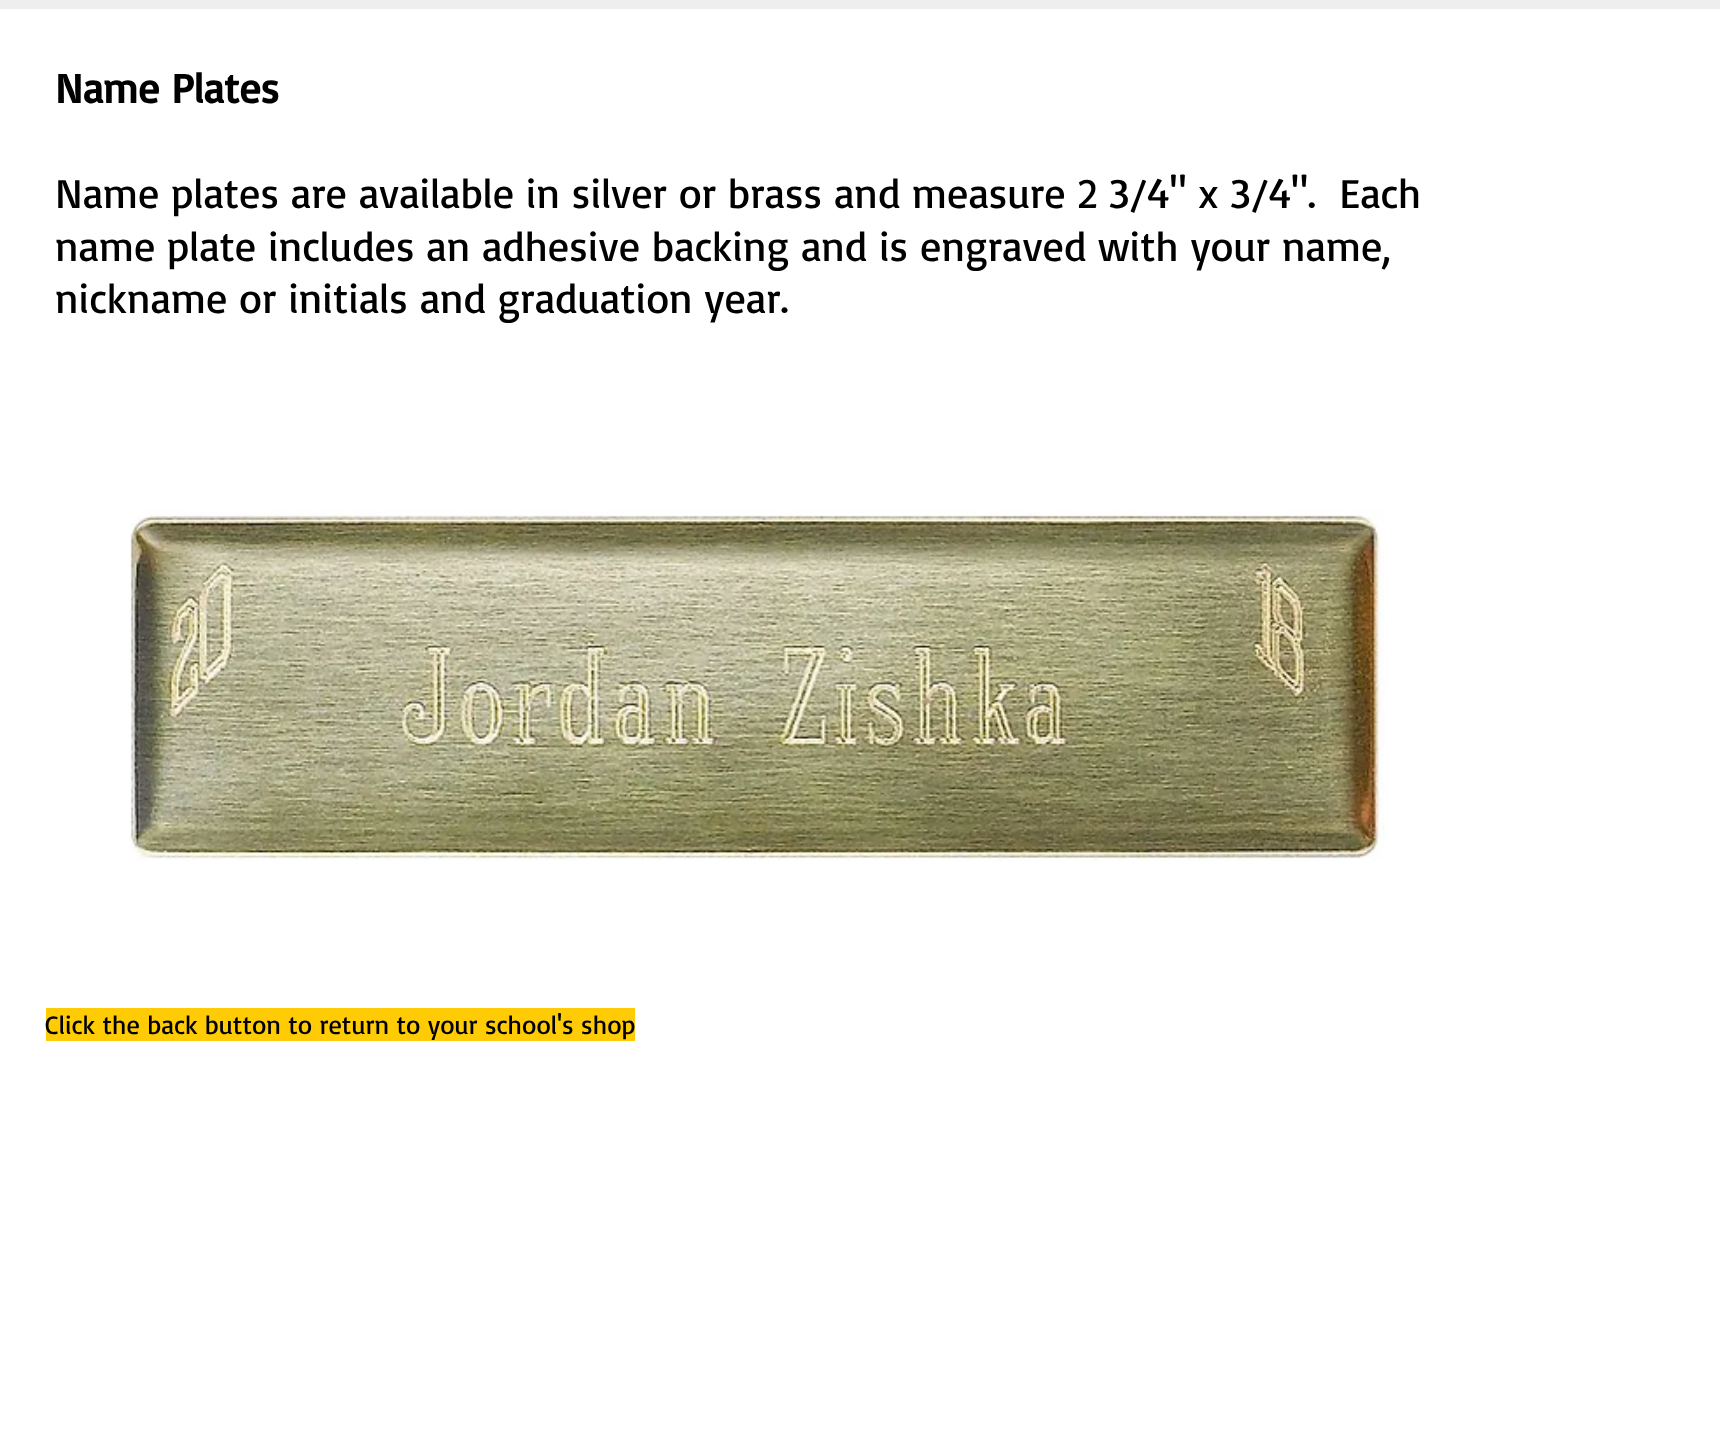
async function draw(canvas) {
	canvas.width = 1720;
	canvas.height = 1432;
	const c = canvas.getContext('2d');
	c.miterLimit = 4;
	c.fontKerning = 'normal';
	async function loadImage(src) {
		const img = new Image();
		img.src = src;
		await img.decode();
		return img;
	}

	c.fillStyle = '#fff';
	c.fillRect(0, 0, 1720, 1432);
	c.fillStyle = '#eee';
	c.fillRect(0, 0, 1720, 9);
	c.font = 'bold 42px Basic';
	c.fillStyle = '#000';
	c.fillText('Name Plates', 55, 103);
	c.font = '42px Basic';
	for (const [text, x, y] of [
		['Name plates are available in silver or brass and measure 2 3/4" x 3/4".  Each', 55, 208],
		['name plate includes an adhesive backing and is engraved with your name,', 55, 261],
		['nickname or initials and graduation year.', 55, 313],
	]) {
		c.fillText(text, x, y);
	}
	c.drawImage(await loadImage('img1.png'), 130, 509, 1255, 352);
	c.fillStyle = '#ffcb05';
	c.fillRect(46, 1008, 589, 33);
	c.font = '26.25px Basic';
	c.fillStyle = '#000';
	c.fillText('Click the back button to return to your school\'s shop', 45, 1034);
}

draw(document.querySelector('canvas'));
